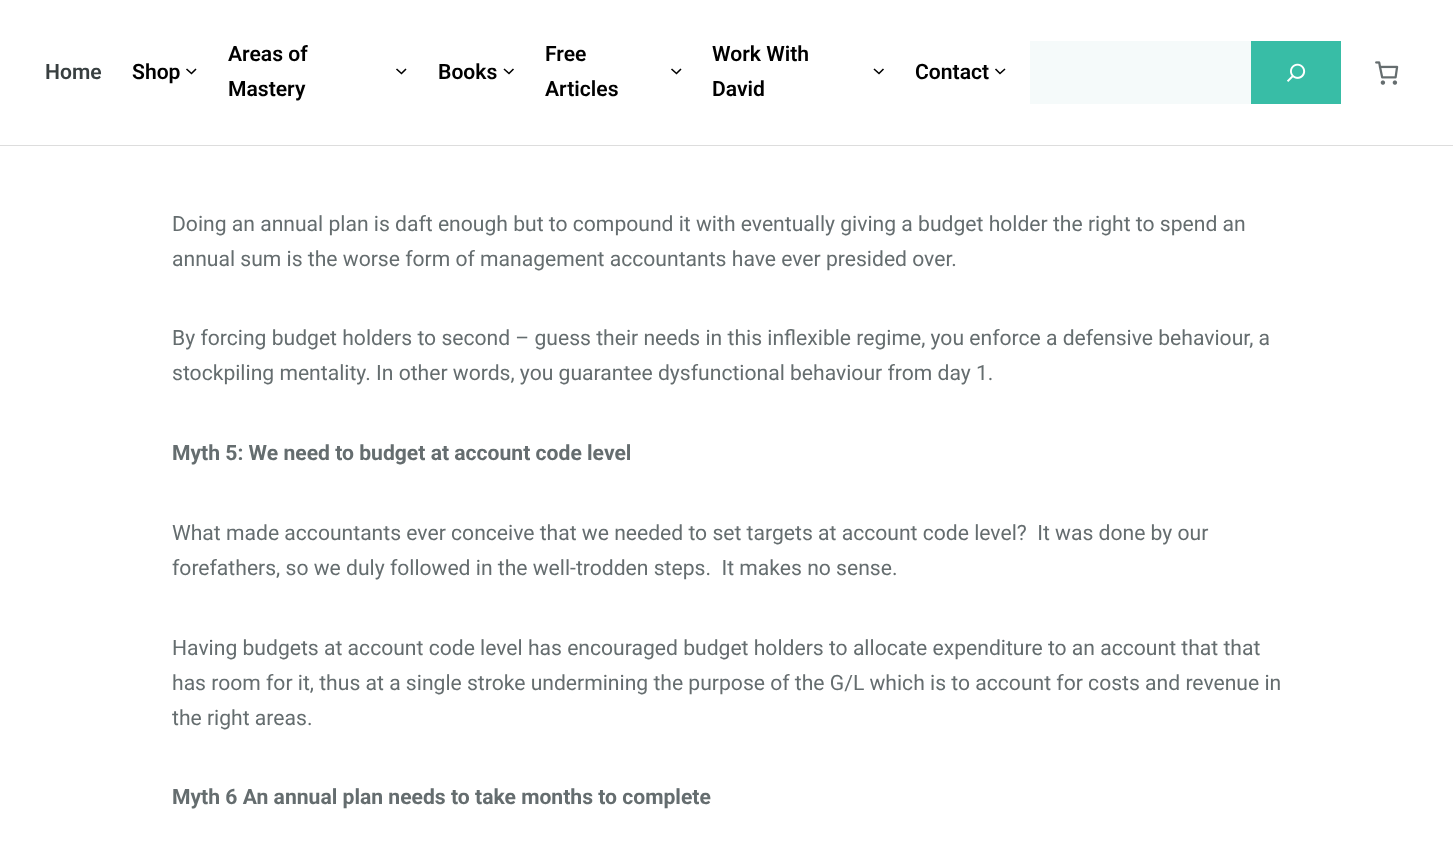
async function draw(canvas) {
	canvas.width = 1453;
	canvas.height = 851;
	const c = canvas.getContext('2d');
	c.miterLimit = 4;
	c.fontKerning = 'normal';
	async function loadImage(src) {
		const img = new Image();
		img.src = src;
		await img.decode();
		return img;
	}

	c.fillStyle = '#fff';
	c.fillRect(0, 0, 1453, 851);
	c.fillStyle = '#ddd';
	c.fillRect(0, 145, 1453, 1);
	c.font = '600 21.12px Roboto';
	c.fillStyle = '#383f40';
	c.fillText('Home', 45, 79);
	c.fillStyle = '#000';
	c.fillText('Shop', 132, 79);
	c.beginPath();
	c.moveTo(186.5, 69);
	c.lineTo(191.5, 73.5);
	c.lineTo(196, 69);
	c.strokeStyle = '#000';
	c.lineWidth = 1.6;
	c.stroke();
	c.fillText('Areas of', 228, 61);
	c.fillText('Mastery', 228, 96);
	c.beginPath();
	c.moveTo(396.5, 69);
	c.lineTo(401.5, 73.5);
	c.lineTo(406, 69);
	c.stroke();
	c.fillText('Books', 438, 79);
	c.beginPath();
	c.moveTo(504, 69);
	c.lineTo(509, 73.5);
	c.lineTo(513.5, 69);
	c.stroke();
	c.fillText('Free', 545, 61);
	c.fillText('Articles', 545, 96);
	c.beginPath();
	c.moveTo(671.5, 69);
	c.lineTo(676.5, 73.5);
	c.lineTo(681, 69);
	c.stroke();
	c.fillText('Work With', 712, 61);
	c.fillText('David', 712, 96);
	c.beginPath();
	c.moveTo(874, 69);
	c.lineTo(879, 73.5);
	c.lineTo(883.5, 69);
	c.stroke();
	c.fillText('Contact', 915, 79);
	c.beginPath();
	c.moveTo(995.5, 69);
	c.lineTo(1000, 73.5);
	c.lineTo(1005, 69);
	c.stroke();
	c.fillStyle = '#f5fafa';
	c.fillRect(1030, 41, 221, 63);
	c.fillStyle = '#38bda6';
	c.fillRect(1251, 41, 90, 63);
	c.drawImage(await loadImage('img1.png'), 1287, 63, 19, 19);
	c.drawImage(await loadImage('img2.png'), 1375, 61, 24, 24);
	c.font = '21.12px Roboto';
	c.fillStyle = '#656d6f';
	for (const [text, x, y] of [
		['Doing an annual plan is daft enough but to compound it with eventually giving a budget holder the right to spend an', 172, 231],
		['annual sum is the worse form of management accountants have ever presided over.', 172, 266],
		['By forcing budget holders to second – guess their needs in this inflexible regime, you enforce a defensive behaviour, a', 172, 345],
		['stockpiling mentality. In other words, you guarantee dysfunctional behaviour from day 1.', 172, 380],
	]) {
		c.fillText(text, x, y);
	}
	c.font = 'bold 21.12px Roboto';
	c.fillText('Myth 5: We need to budget at account code level', 172, 460);
	c.font = '21.12px Roboto';
	for (const [text, x, y] of [
		['What made accountants ever conceive that we needed to set targets at account code level?  It was done by our', 172, 540],
		['forefathers, so we duly followed in the well-trodden steps.  It makes no sense.', 172, 575],
		['Having budgets at account code level has encouraged budget holders to allocate expenditure to an account that that', 172, 655],
		['has room for it, thus at a single stroke undermining the purpose of the G/L which is to account for costs and revenue in', 172, 690],
		['the right areas.', 172, 725],
	]) {
		c.fillText(text, x, y);
	}
	c.font = 'bold 21.12px Roboto';
	c.fillText('Myth 6 An annual plan needs to take months to complete', 172, 804);
}

draw(document.querySelector('canvas'));
